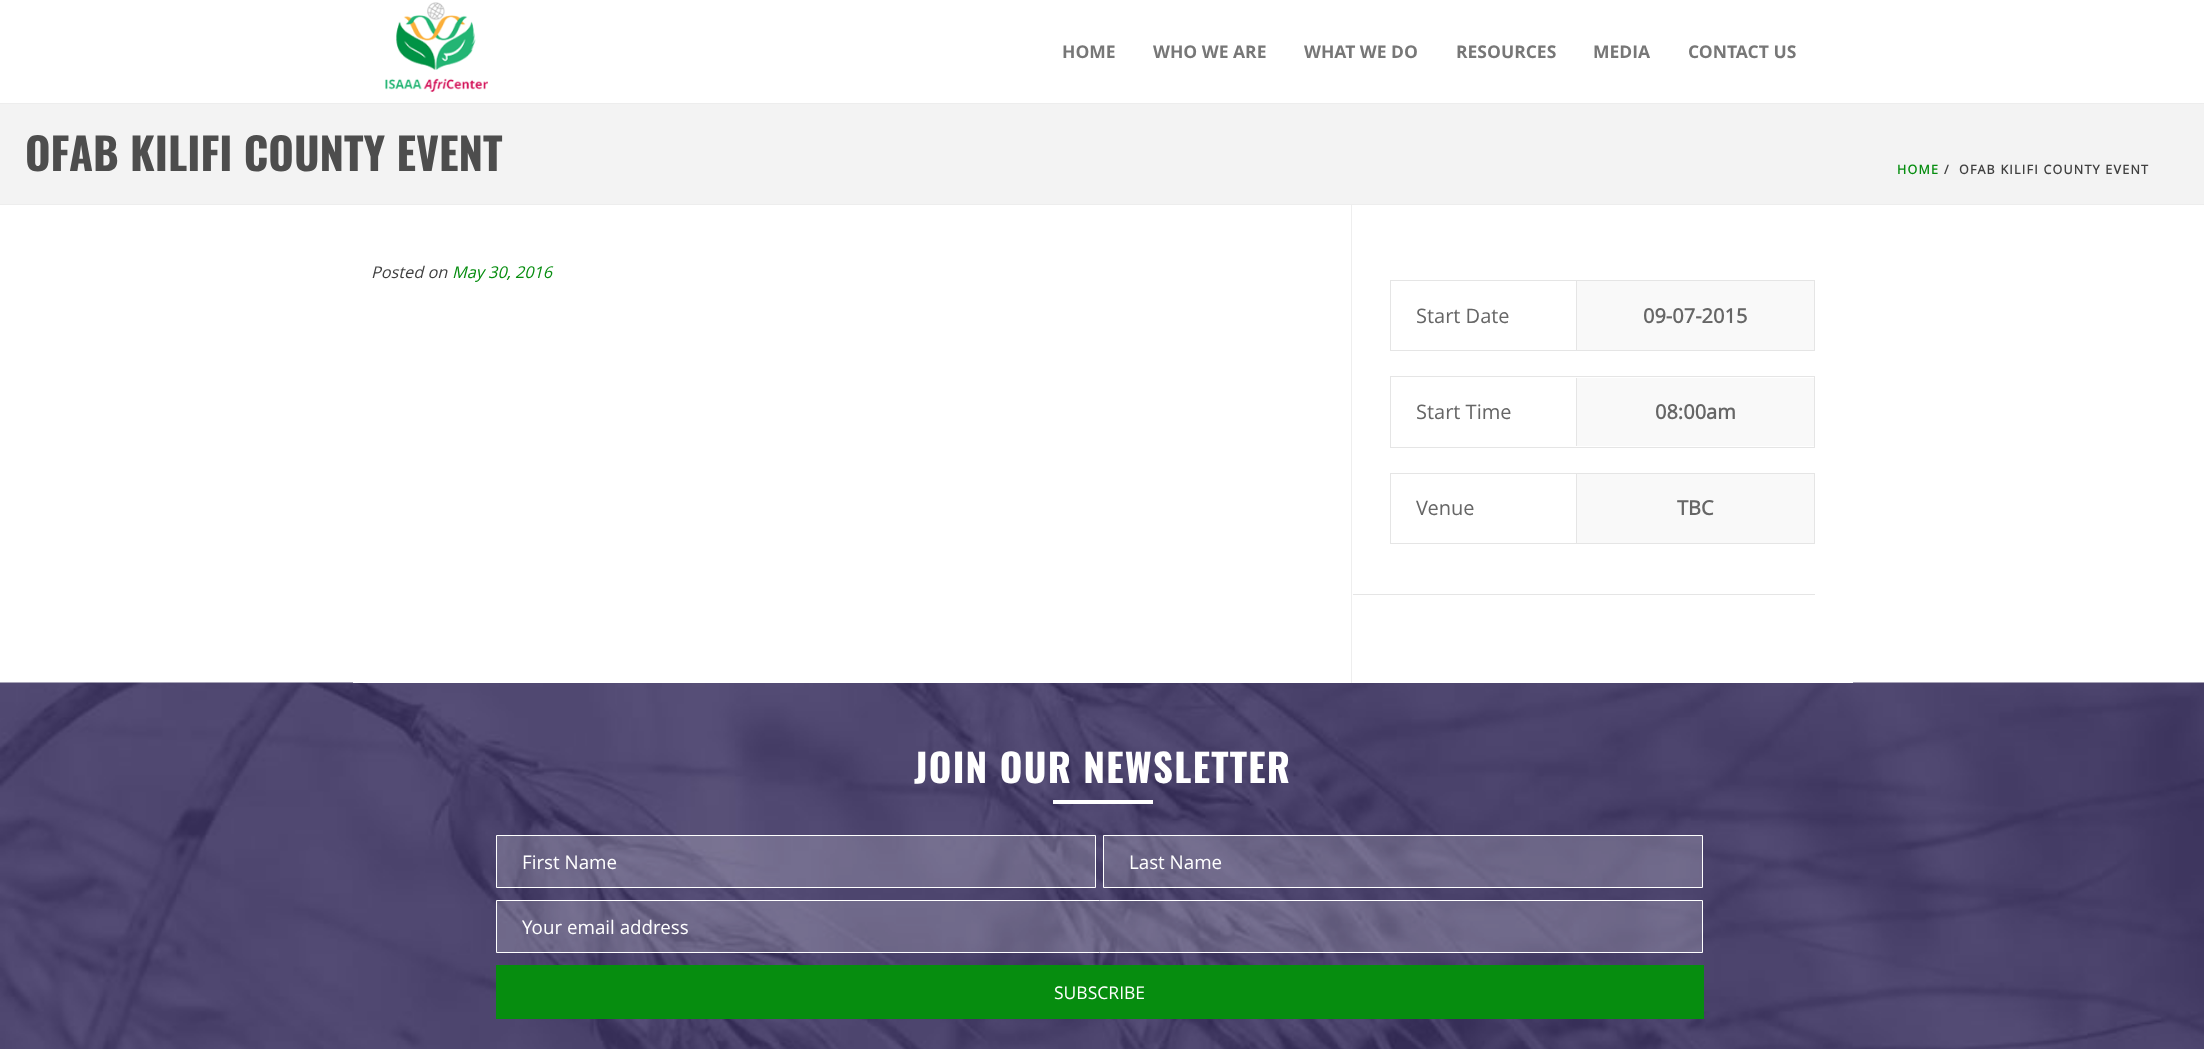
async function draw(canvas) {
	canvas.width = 2204;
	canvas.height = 1049;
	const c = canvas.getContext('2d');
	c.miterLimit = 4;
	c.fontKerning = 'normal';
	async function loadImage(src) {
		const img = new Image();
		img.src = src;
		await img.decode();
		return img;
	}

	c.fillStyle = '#fff';
	c.fillRect(0, 0, 2204, 1049);
	c.fillStyle = '#ededed';
	c.fillRect(0, 103, 2204, 1);
	c.drawImage(await loadImage('img1.png'), 385, 2, 103, 90);
	c.font = 'bold 17.5px "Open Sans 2"';
	c.fillStyle = '#777';
	for (const [text, x, y] of [
		['HOME', 1062, 58],
		['WHO WE ARE', 1153, 58],
		['WHAT WE DO', 1304, 58],
		['RESOURCES', 1456, 58],
		['MEDIA', 1593, 58],
		['CONTACT US', 1688, 58],
	]) {
		c.fillText(text, x, y);
	}
	c.fillStyle = '#f3f3f3';
	c.fillRect(0, 104, 2204, 100);
	c.fillStyle = '#ededed';
	c.fillRect(0, 204, 2204, 1);
	c.font = 'bold 43.75px Oswald';
	c.fillStyle = '#4d4d4d';
	c.fillText('OFAB KILIFI COUNTY EVENT', 25, 171);
	c.letterSpacing = '1.25px';
	c.font = 'bold 12.5px Open Sans';
	c.fillStyle = '#068d0f';
	c.fillText('HOME', 1897, 174);
	c.fillStyle = '#404040';
	c.fillText('/', 1944, 174);
	c.fillText('OFAB KILIFI COUNTY EVENT', 1959, 174);
	c.drawImage(await loadImage('img2.png'), 0, 682, 2204, 367);
	c.fillStyle = '#fff';
	c.fillRect(353, 682, 1500, 1);
	c.letterSpacing = '0px';
	c.font = 'italic 16.25px Open Sans';
	c.fillStyle = '#404040';
	c.fillText('Posted on', 371, 278);
	c.fillStyle = '#068d0f';
	c.fillText('May 30, 2016', 452, 278);
	c.fillStyle = '#eee';
	c.fillRect(1351, 205, 1, 478);
	c.strokeStyle = '#e5e5e5';
	c.strokeRect(1390.5, 280.5, 424, 70);
	c.font = '20px Open Sans';
	c.fillStyle = '#666';
	c.fillText('Start Date', 1416, 323);
	c.fillStyle = '#f9f9f9';
	c.fillRect(1577, 281, 237, 69);
	c.fillStyle = '#e5e5e5';
	c.fillRect(1576, 281, 1, 69);
	c.font = 'bold 20px Open Sans';
	c.fillStyle = '#666';
	c.fillText('09-07-2015', 1643, 323);
	c.strokeRect(1390.5, 376.5, 424, 71);
	c.font = '20px Open Sans';
	c.fillText('Start Time', 1416, 419);
	c.fillStyle = '#f9f9f9';
	c.fillRect(1577, 378, 237, 68);
	c.fillStyle = '#e5e5e5';
	c.fillRect(1576, 378, 1, 68);
	c.font = 'bold 20px Open Sans';
	c.fillStyle = '#666';
	c.fillText('08:00am', 1655, 419);
	c.strokeRect(1390.5, 473.5, 424, 70);
	c.font = '20px Open Sans';
	c.fillText('Venue', 1416, 515);
	c.fillStyle = '#f9f9f9';
	c.fillRect(1577, 474, 237, 69);
	c.fillStyle = '#e5e5e5';
	c.fillRect(1576, 474, 1, 69);
	c.font = 'bold 20px Open Sans';
	c.fillStyle = '#666';
	c.fillText('TBC', 1677, 515);
	c.fillStyle = '#e5e5e5';
	c.fillRect(1353, 594, 462, 1);
	c.letterSpacing = '1.25px';
	c.font = 'bold 38.75px Oswald';
	c.fillStyle = '#fff';
	c.fillText('JOIN OUR NEWSLETTER', 914, 783);
	c.fillRect(1053, 800, 100, 4);
	c.fillStyle = '#ffffff33';
	c.beginPath();
	c.rect(496.5, 835.5, 599, 52);
	c.fill();
	c.strokeStyle = '#fff';
	c.stroke();
	c.letterSpacing = '0px';
	c.font = '18.75px Open Sans';
	c.fillStyle = '#fff';
	c.fillText('First Name', 522, 869);
	c.fillStyle = '#ffffff33';
	c.beginPath();
	c.rect(1103.5, 835.5, 599, 52);
	c.fill();
	c.stroke();
	c.fillStyle = '#fff';
	c.fillText('Last Name', 1129, 869);
	c.fillStyle = '#ffffff33';
	c.beginPath();
	c.rect(496.5, 900.5, 1206, 52);
	c.fill();
	c.stroke();
	c.fillStyle = '#fff';
	c.fillText('Your email address', 522, 934);
	c.fillStyle = '#068d0f';
	c.fillRect(496, 965, 1208, 54);
	c.font = '17.5px Open Sans';
	c.fillStyle = '#fff';
	c.fillText('SUBSCRIBE', 1054, 999);
}

draw(document.querySelector('canvas'));
